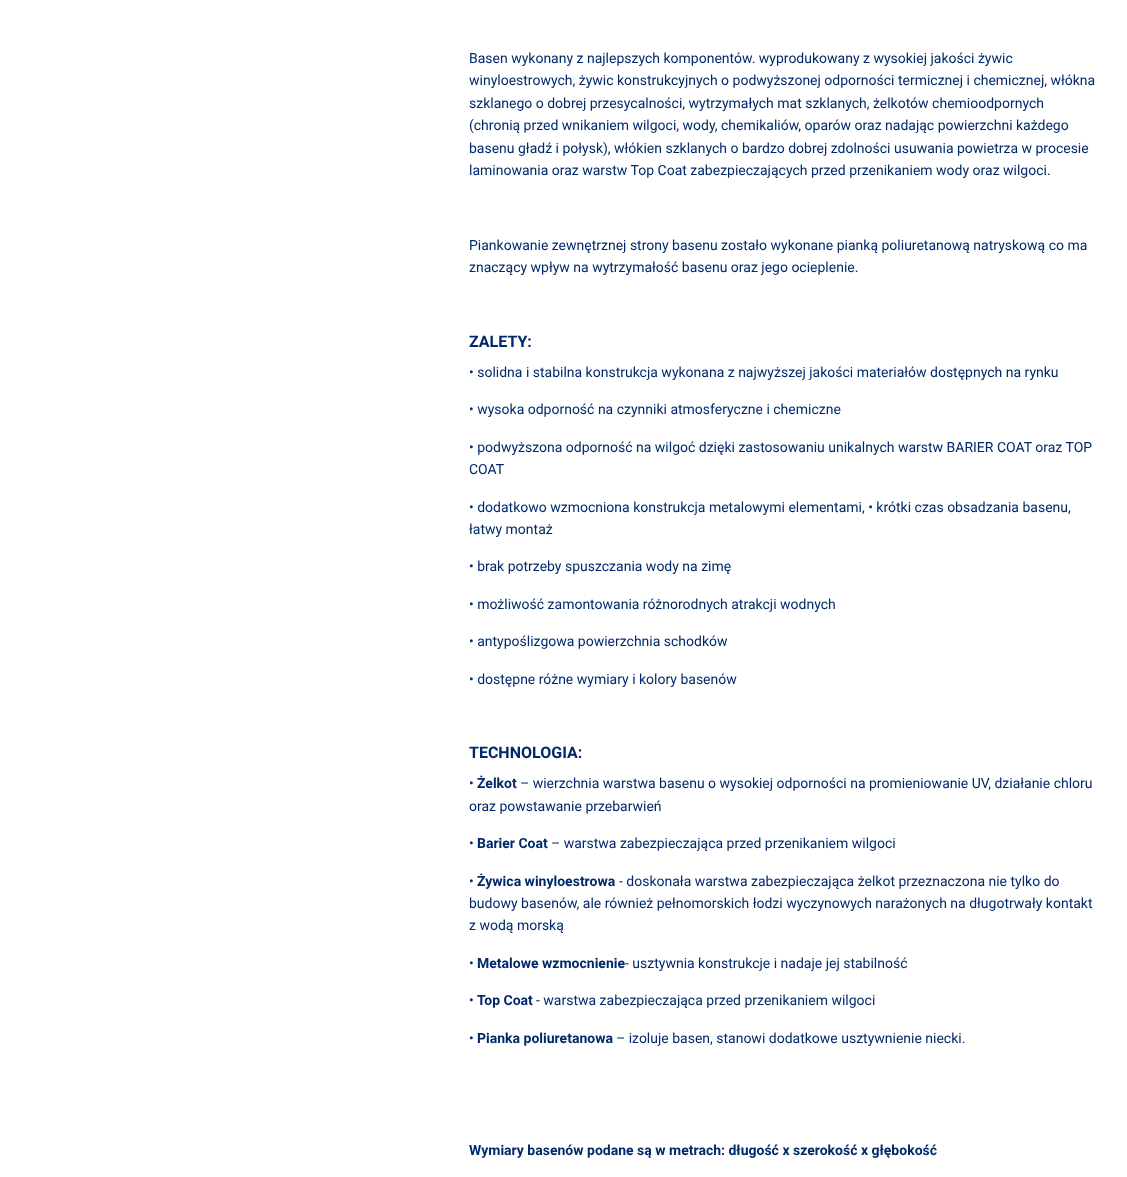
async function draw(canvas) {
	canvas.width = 1127;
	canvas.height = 1177;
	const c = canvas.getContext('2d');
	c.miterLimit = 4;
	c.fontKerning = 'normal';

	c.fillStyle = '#fff';
	c.fillRect(0, 0, 1127, 1177);
	c.font = '14px Roboto';
	c.fillStyle = '#00296b';
	for (const [text, x, y] of [
		['Basen wykonany z najlepszych komponentów. wyprodukowany z wysokiej jakości żywic', 469, 63],
		['winyloestrowych, żywic konstrukcyjnych o podwyższonej odporności termicznej i chemicznej, włókna', 469, 85],
		['szklanego o dobrej przesycalności, wytrzymałych mat szklanych, żelkotów chemioodpornych', 469, 108],
		['(chronią przed wnikaniem wilgoci, wody, chemikaliów, oparów oraz nadając powierzchni każdego', 469, 130],
		['basenu gładź i połysk), włókien szklanych o bardzo dobrej zdolności usuwania powietrza w procesie', 469, 153],
		['laminowania oraz warstw Top Coat zabezpieczających przed przenikaniem wody oraz wilgoci.', 469, 175],
		['Piankowanie zewnętrznej strony basenu zostało wykonane pianką poliuretanową natryskową co ma', 469, 250],
		['znaczący wpływ na wytrzymałość basenu oraz jego ocieplenie.', 469, 272],
	]) {
		c.fillText(text, x, y);
	}
	c.font = 'bold 16px Roboto';
	c.fillText('ZALETY:', 469, 347);
	c.font = '14px Roboto';
	for (const [text, x, y] of [
		['• solidna i stabilna konstrukcja wykonana z najwyższej jakości materiałów dostępnych na rynku', 469, 377],
		['• wysoka odporność na czynniki atmosferyczne i chemiczne', 469, 414],
		['• podwyższona odporność na wilgoć dzięki zastosowaniu unikalnych warstw BARIER COAT oraz TOP', 469, 452],
		['COAT', 469, 474],
		['• dodatkowo wzmocniona konstrukcja metalowymi elementami, • krótki czas obsadzania basenu,', 469, 512],
		['łatwy montaż', 469, 534],
		['• brak potrzeby spuszczania wody na zimę', 469, 571],
		['• możliwość zamontowania różnorodnych atrakcji wodnych', 469, 609],
		['• antypoślizgowa powierzchnia schodków', 469, 646],
		['• dostępne różne wymiary i kolory basenów', 469, 684],
	]) {
		c.fillText(text, x, y);
	}
	c.font = 'bold 16px Roboto';
	c.fillText('TECHNOLOGIA:', 469, 758);
	c.font = '14px Roboto';
	c.fillText('•', 469, 788);
	c.font = 'bold 14px Roboto';
	c.fillText('Żelkot', 477, 788);
	c.font = '14px Roboto';
	for (const [text, x, y] of [
		['– wierzchnia warstwa basenu o wysokiej odporności na promieniowanie UV, działanie chloru', 520, 788],
		['oraz powstawanie przebarwień', 469, 811],
		['•', 469, 848],
	]) {
		c.fillText(text, x, y);
	}
	c.font = 'bold 14px Roboto';
	c.fillText('Barier Coat', 477, 848);
	c.font = '14px Roboto';
	c.fillText('– warstwa zabezpieczająca przed przenikaniem wilgoci', 551, 848);
	c.fillText('•', 469, 886);
	c.font = 'bold 14px Roboto';
	c.fillText('Żywica winyloestrowa', 477, 886);
	c.font = '14px Roboto';
	for (const [text, x, y] of [
		['- doskonała warstwa zabezpieczająca żelkot przeznaczona nie tylko do', 619, 886],
		['budowy basenów, ale również pełnomorskich łodzi wyczynowych narażonych na długotrwały kontakt', 469, 908],
		['z wodą morską', 469, 930],
		['•', 469, 968],
	]) {
		c.fillText(text, x, y);
	}
	c.font = 'bold 14px Roboto';
	c.fillText('Metalowe wzmocnienie', 477, 968);
	c.font = '14px Roboto';
	c.fillText('- usztywnia konstrukcje i nadaje jej stabilność', 625, 968);
	c.fillText('•', 469, 1005);
	c.font = 'bold 14px Roboto';
	c.fillText('Top Coat', 477, 1005);
	c.font = '14px Roboto';
	c.fillText('- warstwa zabezpieczająca przed przenikaniem wilgoci', 536, 1005);
	c.fillText('•', 469, 1043);
	c.font = 'bold 14px Roboto';
	c.fillText('Pianka poliuretanowa', 477, 1043);
	c.font = '14px Roboto';
	c.fillText('– izoluje basen, stanowi dodatkowe usztywnienie niecki.', 616, 1043);
	c.font = 'bold 14px Roboto';
	c.fillText('Wymiary basenów podane są w metrach: długość x szerokość x głębokość', 469, 1155);
}

draw(document.querySelector('canvas'));
